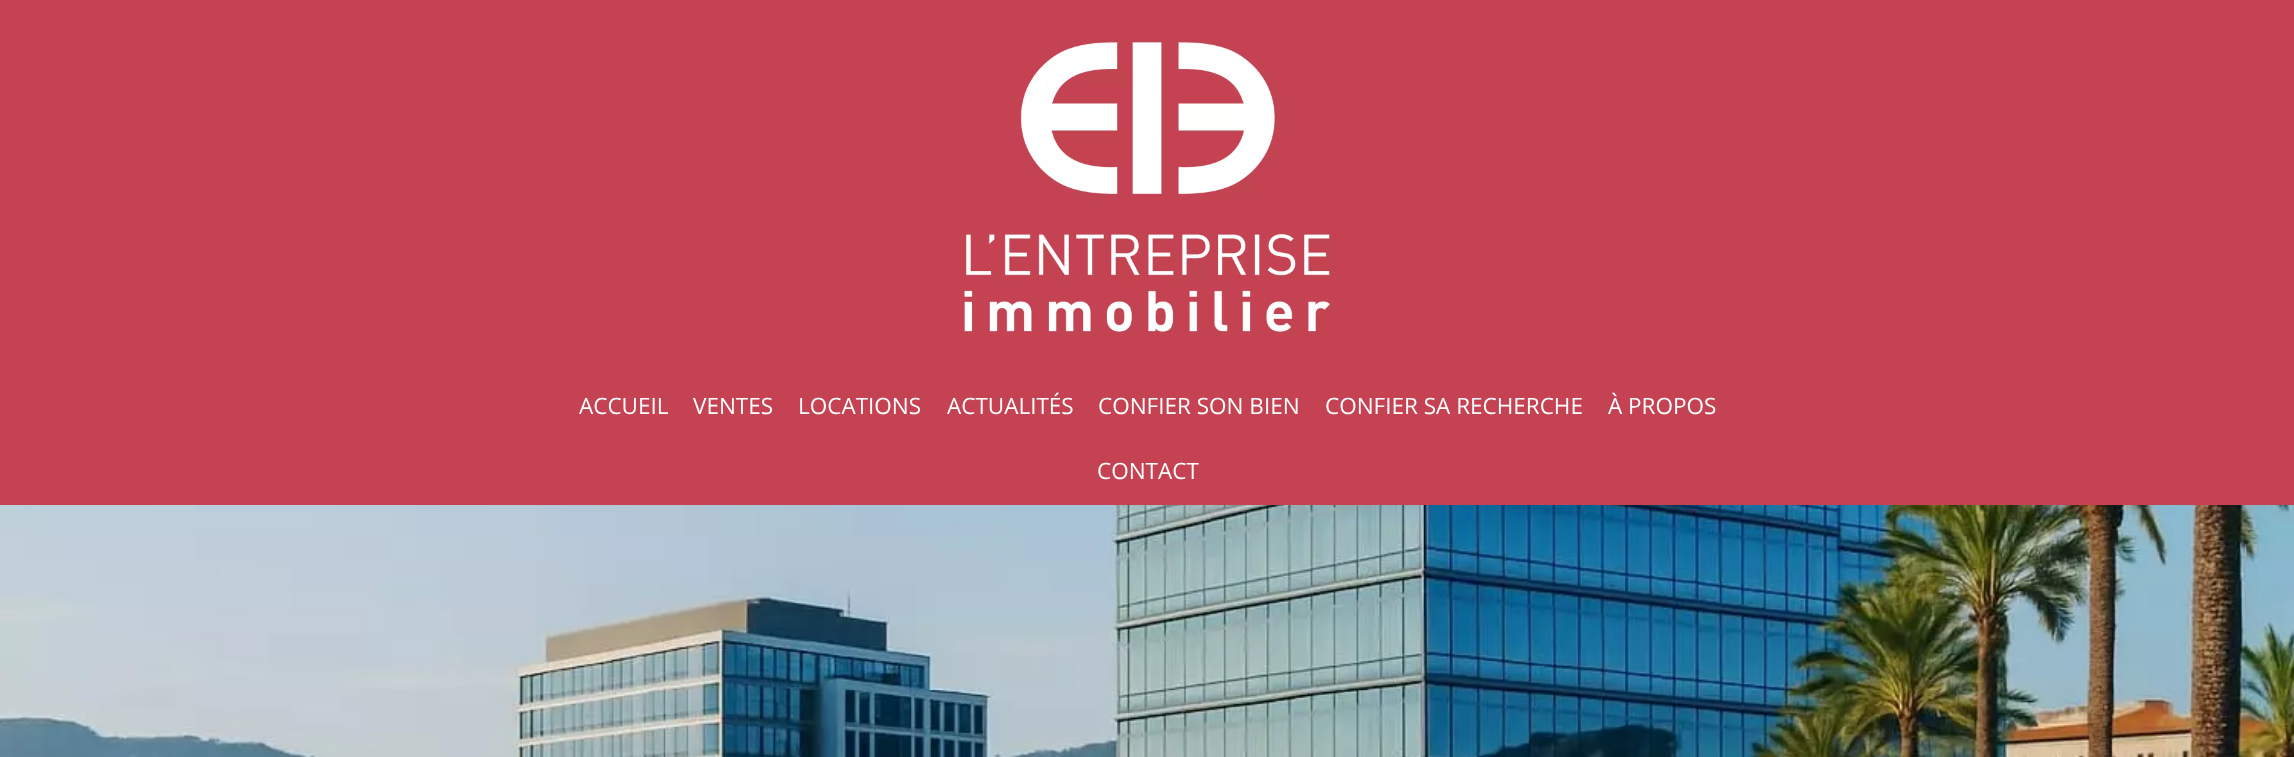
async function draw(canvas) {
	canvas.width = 2294;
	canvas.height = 757;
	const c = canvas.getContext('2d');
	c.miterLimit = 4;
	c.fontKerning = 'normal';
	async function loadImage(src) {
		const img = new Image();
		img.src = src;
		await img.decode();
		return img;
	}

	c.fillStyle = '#fff';
	c.fillRect(0, 0, 2294, 757);
	c.fillStyle = '#c54253';
	c.fillRect(0, 0, 2294, 505);
	c.drawImage(await loadImage('img1.png'), 964, 39, 369, 298);
	c.font = '22.5px Open Sans';
	c.fillStyle = '#fff';
	for (const [text, x, y] of [
		['ACCUEIL', 579, 414],
		['VENTES', 693, 414],
		['LOCATIONS', 798, 414],
		['ACTUALITÉS', 947, 414],
		['CONFIER SON BIEN', 1098, 414],
		['CONFIER SA RECHERCHE', 1325, 414],
		['À PROPOS', 1608, 414],
		['CONTACT', 1097, 479],
	]) {
		c.fillText(text, x, y);
	}
	c.drawImage(await loadImage('img2.png'), 0, 505, 2294, 252);
}

draw(document.querySelector('canvas'));
